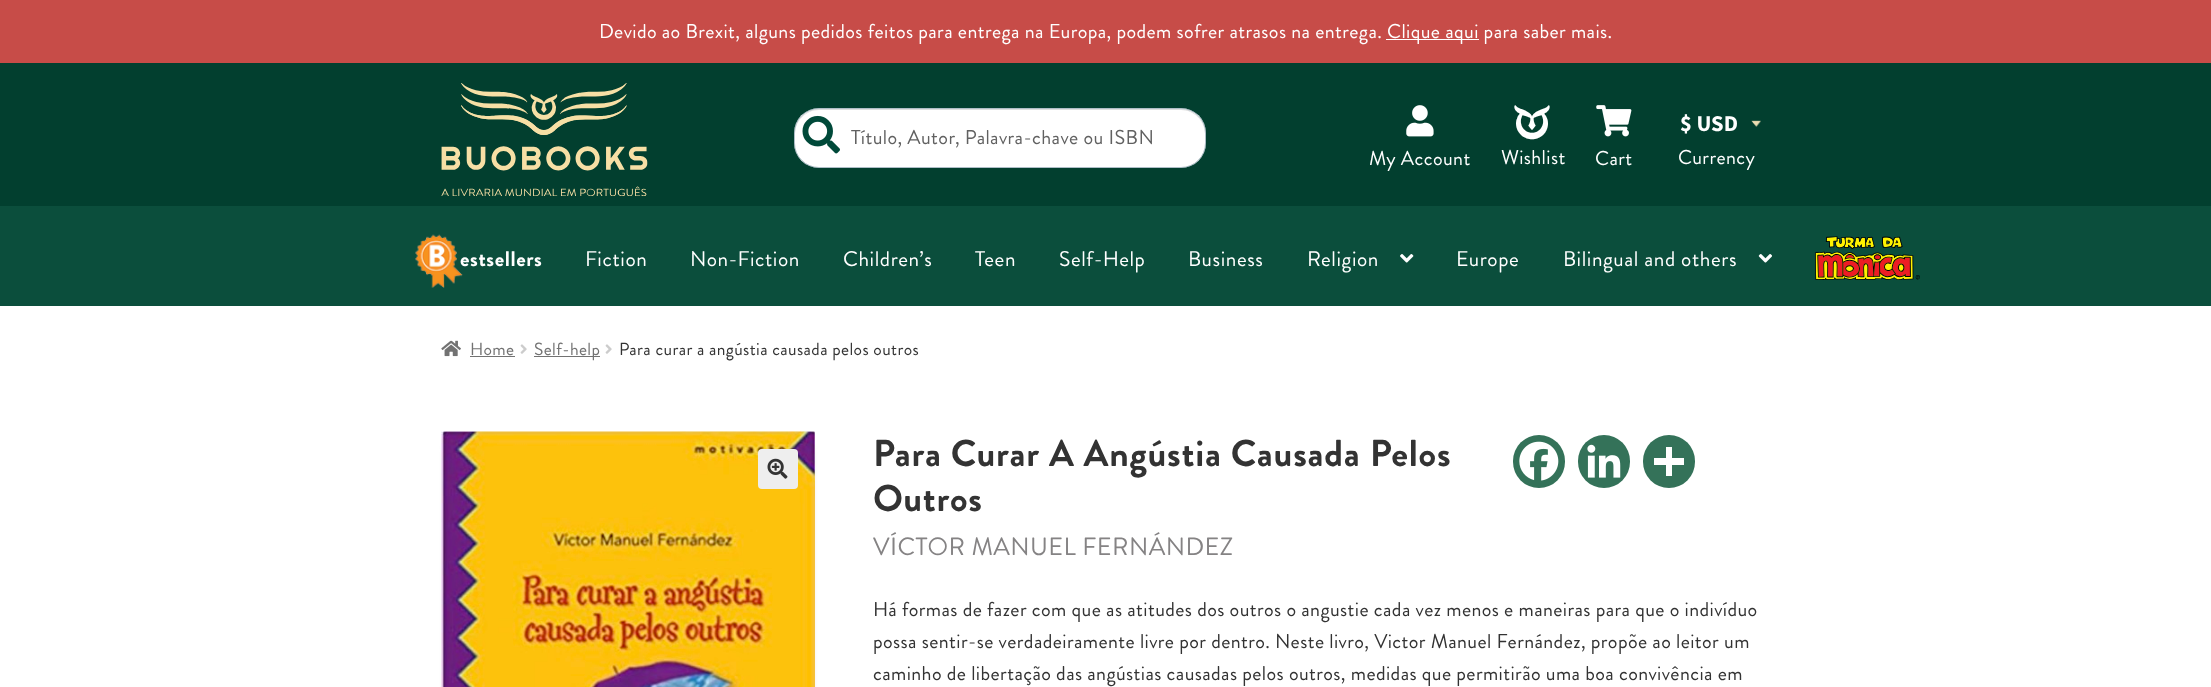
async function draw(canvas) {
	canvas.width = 2211;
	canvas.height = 687;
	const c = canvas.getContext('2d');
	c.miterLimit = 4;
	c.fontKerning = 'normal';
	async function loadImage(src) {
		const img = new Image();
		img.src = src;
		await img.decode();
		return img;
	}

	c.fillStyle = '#fff';
	c.fillRect(0, 0, 2211, 687);
	c.fillStyle = '#c74c48';
	c.fillRect(0, 0, 2211, 63);
	c.letterSpacing = '0.4px';
	c.font = '20px Brandon Grotesque';
	c.fillStyle = '#fff';
	c.fillText('Devido ao Brexit, alguns pedidos feitos para entrega na Europa, podem sofrer atrasos na entrega.', 599, 38);
	c.fillRect(1386, 39, 93, 1);
	c.fillText('Clique aqui para saber mais.', 1387, 38);
	c.fillStyle = '#023f2f';
	c.fillRect(0, 63, 2211, 143);
	c.drawImage(await loadImage('img1.png'), 441, 83, 207, 113);
	c.fillStyle = '#fff';
	c.beginPath();
	c.roundRect(794, 108, 412, 60, 25);
	c.fill();
	c.fillStyle = '#dfdfdf';
	c.beginPath();
	c.moveTo(819, 110);
	c.lineTo(1181, 110);
	c.bezierCurveTo(1194, 110, 1205, 121, 1205, 134);
	c.lineTo(1205, 133);
	c.bezierCurveTo(1205, 120, 1194, 109, 1181, 109);
	c.lineTo(819, 109);
	c.bezierCurveTo(806, 109, 795, 120, 795, 133);
	c.lineTo(795, 134);
	c.bezierCurveTo(795, 121, 806, 110, 819, 110);
	c.closePath();
	c.fill();
	c.beginPath();
	c.roundRect(794.5, 108.5, 411, 59, 24.5);
	c.strokeStyle = '#355d7466';
	c.stroke();
	c.drawImage(await loadImage('img2.png'), 802, 115, 38, 39);
	c.fillStyle = '#616161';
	c.fillText('Título, Autor, Palavra-chave ou ISBN', 851, 144);
	c.drawImage(await loadImage('img3.png'), 1406, 105, 28, 32);
	c.fillStyle = '#fff';
	c.fillText('My Account', 1369, 165);
	c.font = '36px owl';
	c.fillText('O', 1514, 138);
	c.font = '20px Brandon Grotesque';
	c.fillText('Wishlist', 1501, 164);
	c.drawImage(await loadImage('img4.png'), 1596, 105, 36, 32);
	c.fillText('Cart', 1595, 165);
	c.drawImage(await loadImage('img5.png'), 1751, 120, 10, 7);
	c.letterSpacing = '0px';
	c.font = 'bold 22.5px Source Sans Pro';
	c.fillText('$ USD', 1680, 131);
	c.letterSpacing = '0.4px';
	c.font = '20px Brandon Grotesque';
	c.fillText('Currency', 1678, 164);
	c.fillStyle = '#0b4e3c';
	c.fillRect(0, 206, 2211, 100);
	c.letterSpacing = '0.6px';
	c.font = 'bold 21.25px Brandon Grotesque';
	c.fillStyle = '#fff';
	c.fillText('estsellers', 460, 266);
	c.drawImage(await loadImage('img6.png'), 415, 234, 48, 54);
	c.font = '21.25px Brandon Grotesque';
	for (const [text, x, y] of [
		['Fiction', 585, 266],
		['Non-Fiction', 690, 266],
		['Children’s', 843, 266],
		['Teen', 975, 266],
		['Self-Help', 1059, 266],
		['Business', 1188, 266],
		['Religion', 1307, 266],
	]) {
		c.fillText(text, x, y);
	}
	c.drawImage(await loadImage('img7.png'), 1400, 254, 14, 9);
	c.fillText('Europe', 1456, 266);
	c.fillText('Bilingual and others', 1563, 266);
	c.drawImage(await loadImage('img8.png'), 1758, 254, 14, 9);
	c.drawImage(await loadImage('img9.png'), 1815, 236, 105, 44);
	c.drawImage(await loadImage('img10.png'), 441, 340, 20, 17);
	c.letterSpacing = '0.4px';
	c.font = '17.5px Brandon Grotesque';
	c.fillStyle = '#727272';
	c.fillText('Home', 470, 355);
	c.fillRect(470, 356, 45, 1);
	c.drawImage(await loadImage('img11.png'), 520, 344, 7, 10);
	c.fillRect(534, 356, 66, 1);
	c.fillText('Self-help', 534, 355);
	c.drawImage(await loadImage('img11.png'), 605, 344, 7, 10);
	c.fillStyle = '#333';
	c.fillText('Para curar a angústia causada pelos outros', 619, 355);
	c.fillStyle = '#555';
	c.filter = 'blur(4px)';
	c.beginPath();
	c.rect(449, 449, 359, 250);
	c.fill();
	c.filter = 'none';
	c.drawImage(await loadImage('img12.png'), 441, 431, 374, 256);
	c.fillStyle = '#eee';
	c.beginPath();
	c.roundRect(758, 449, 40, 40, 4);
	c.fill();
	c.drawImage(await loadImage('img13.png'), 767, 458, 21, 21);
	c.letterSpacing = '0.75px';
	c.font = 'bold 37.5px Brandon Grotesque';
	c.fillStyle = '#333';
	c.fillText('Para Curar A Angústia Causada Pelos', 873, 466);
	c.fillText('Outros', 873, 511);
	c.letterSpacing = '0.4px';
	c.font = '25px Brandon Grotesque';
	c.fillStyle = '#858384';
	c.fillText('VÍCTOR MANUEL FERNÁNDEZ', 873, 555);
	c.fillStyle = '#347259';
	c.beginPath();
	c.roundRect(1513, 435, 52, 53, 26);
	c.fill();
	c.drawImage(await loadImage('img14.png'), 1519, 441, 40, 40);
	c.beginPath();
	c.roundRect(1578, 435, 52, 53, 26);
	c.fill();
	c.drawImage(await loadImage('img15.png'), 1587, 444, 34, 34);
	c.beginPath();
	c.roundRect(1643, 435, 52, 53, 26);
	c.fill();
	c.fillStyle = '#fff';
	c.fillRect(1666, 447, 6, 29);
	c.fillRect(1654, 458, 30, 7);
	c.font = '20px Brandon Grotesque';
	c.fillStyle = '#333';
	for (const [text, x, y] of [
		['Há formas de fazer com que as atitudes dos outros o angustie cada vez menos e maneiras para que o indivíduo', 873, 616],
		['possa sentir-se verdadeiramente livre por dentro. Neste livro, Victor Manuel Fernández, propõe ao leitor um', 873, 648],
		['caminho de libertação das angústias causadas pelos outros, medidas que permitirão uma boa convivência em', 873, 680],
	]) {
		c.fillText(text, x, y);
	}
}

draw(document.querySelector('canvas'));
